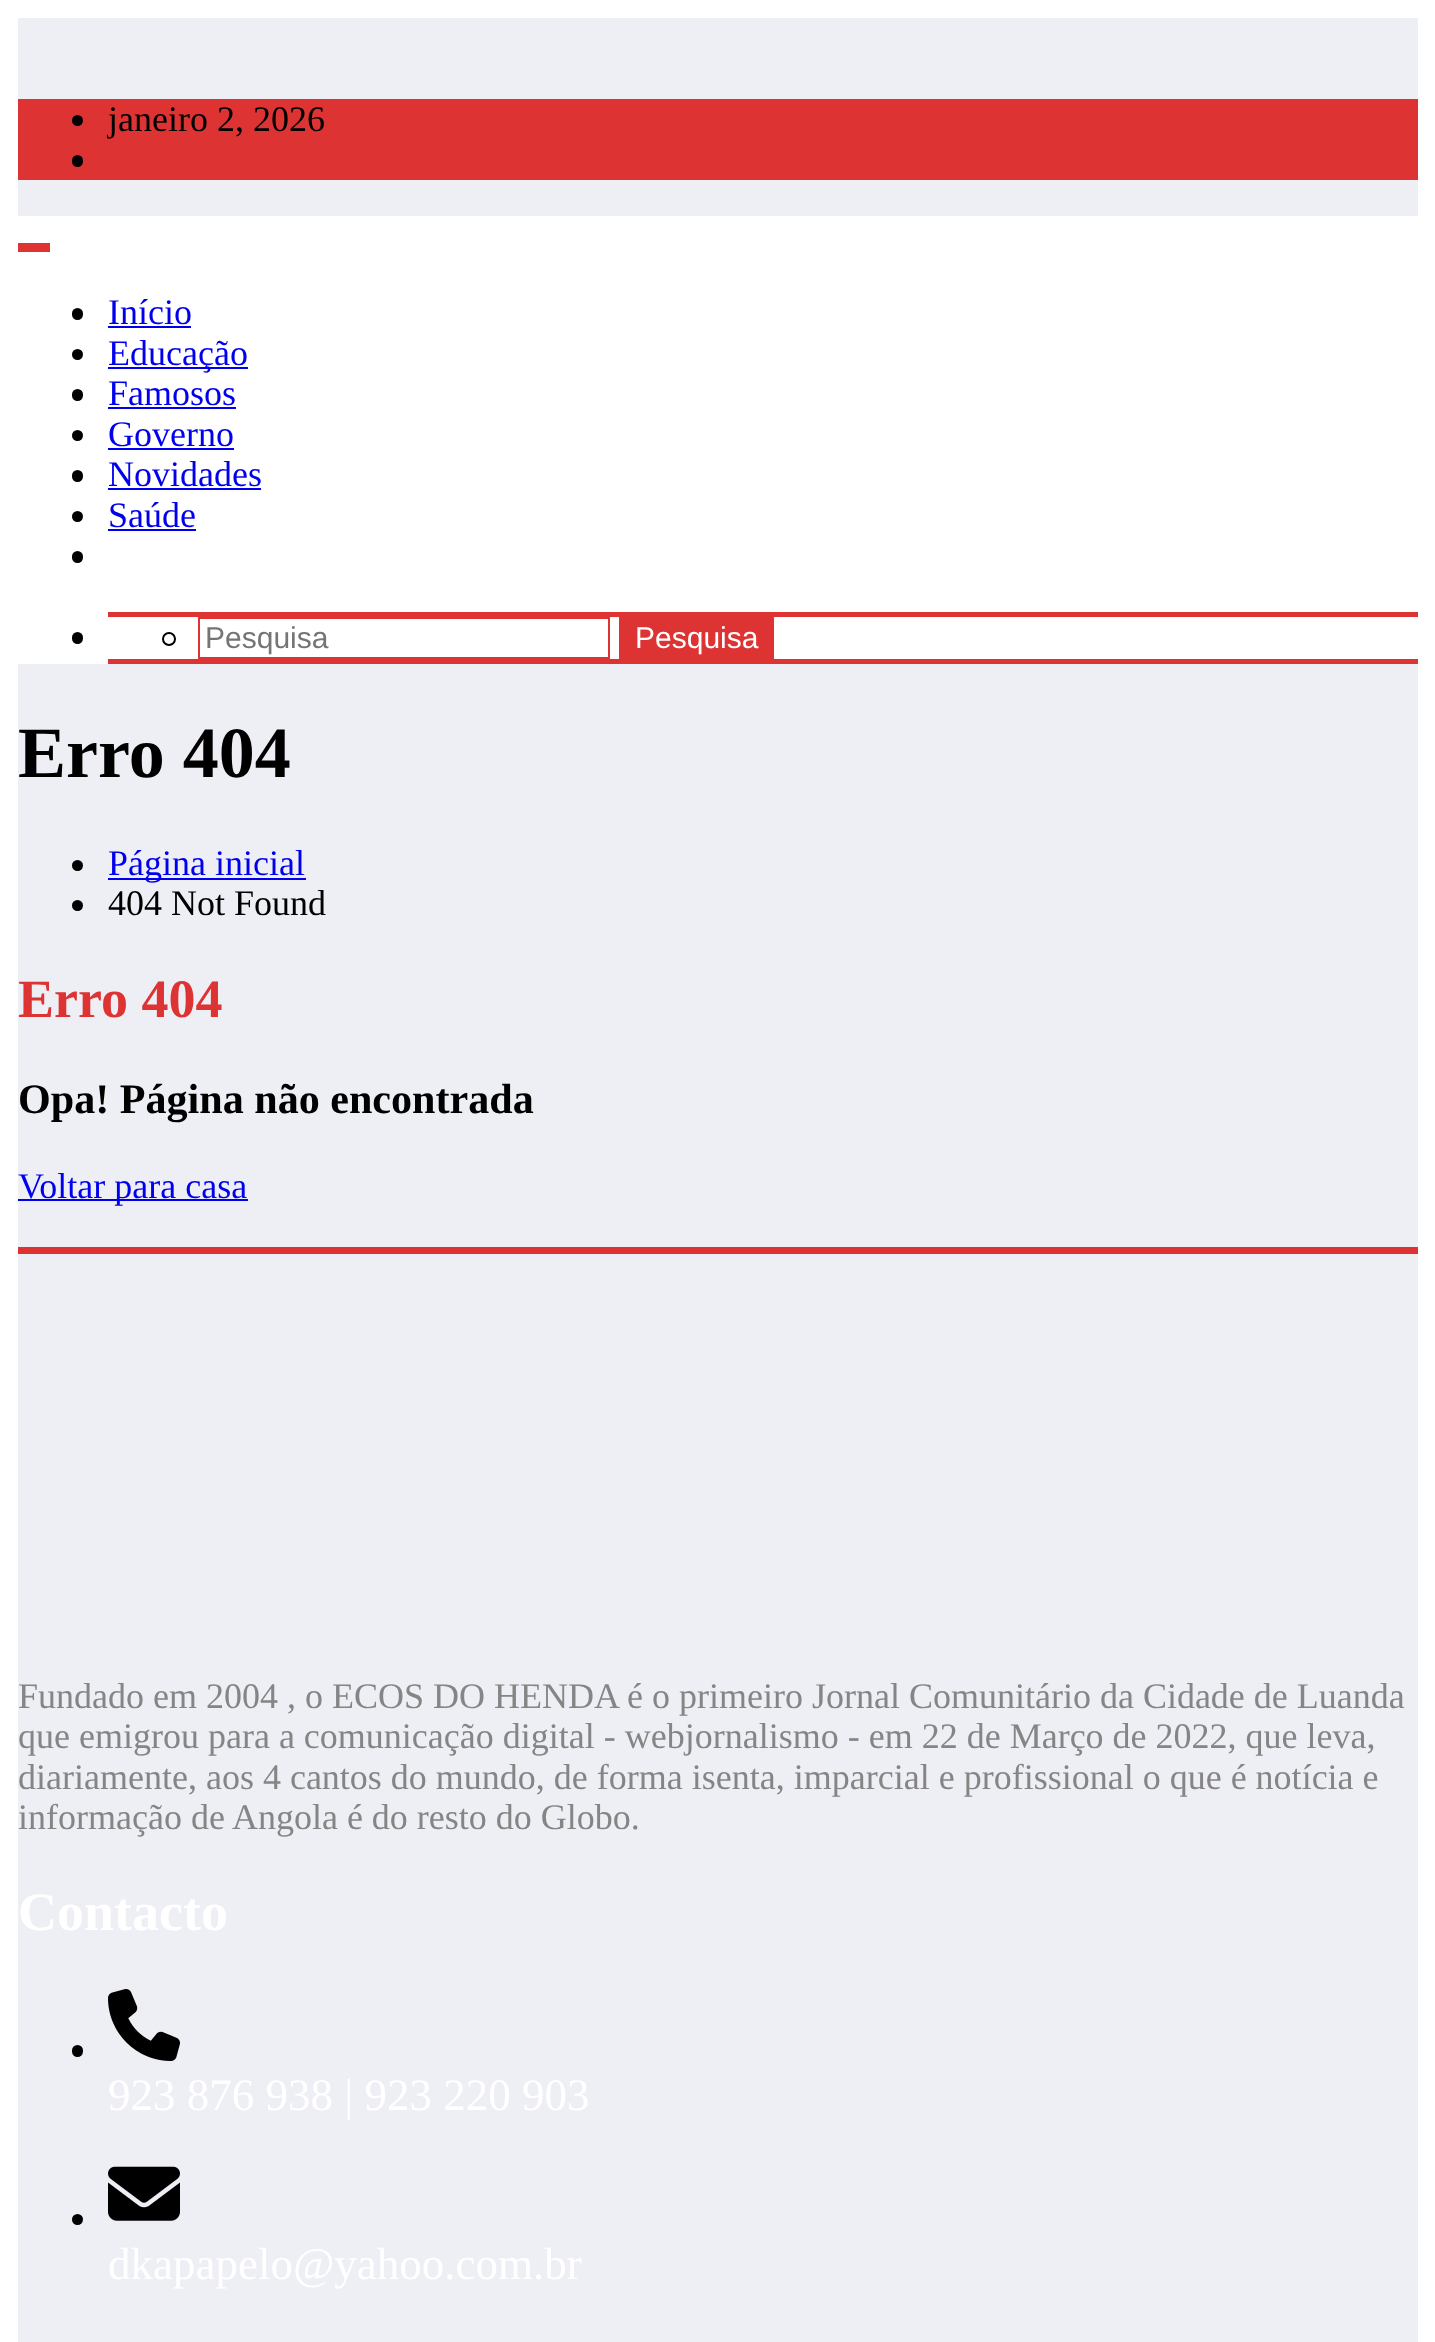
async function draw(canvas) {
	canvas.width = 1435;
	canvas.height = 2342;
	const c = canvas.getContext('2d');
	c.miterLimit = 4;
	c.fontKerning = 'normal';
	async function loadImage(src) {
		const img = new Image();
		img.src = src;
		await img.decode();
		return img;
	}

	c.fillStyle = '#fff';
	c.fillRect(0, 0, 1435, 2342);
	c.fillStyle = '#eeeef5';
	c.fillRect(18, 18, 1400, 2324);
	c.fillStyle = '#d33';
	c.fillRect(18, 99, 1400, 81);
	c.fillStyle = '#000';
	c.beginPath();
	c.arc(77.5, 120.5, 5.5, 0, 2 * Math.PI);
	c.fill();
	c.font = '36px Liberation Serif';
	c.fillText('janeiro 2, 2026', 108, 131);
	c.beginPath();
	c.roundRect(72, 155, 11, 12, 5.5);
	c.fill();
	c.fillStyle = '#fff';
	c.fillRect(18, 216, 1400, 448);
	c.fillStyle = '#d33';
	c.fillRect(18, 243, 32, 9);
	c.fillStyle = '#000';
	c.beginPath();
	c.roundRect(72, 308, 11, 12, 5.5);
	c.fill();
	c.fillStyle = '#00e';
	c.fillText('Início', 108, 324);
	c.fillRect(108, 326, 83, 2);
	c.fillStyle = '#000';
	c.beginPath();
	c.arc(77.5, 354.5, 5.5, 0, 2 * Math.PI);
	c.fill();
	c.fillStyle = '#00e';
	c.fillRect(108, 367, 140, 2);
	c.fillText('Educação', 108, 365);
	c.fillStyle = '#000';
	c.beginPath();
	c.roundRect(72, 389, 11, 12, 5.5);
	c.fill();
	c.fillStyle = '#00e';
	c.fillText('Famosos', 108, 405);
	c.fillRect(108, 407, 128, 2);
	c.fillStyle = '#000';
	c.beginPath();
	c.arc(77.5, 435.5, 5.5, 0, 2 * Math.PI);
	c.fill();
	c.fillStyle = '#00e';
	c.fillText('Governo', 108, 446);
	c.fillRect(108, 448, 126, 2);
	c.fillStyle = '#000';
	c.beginPath();
	c.roundRect(72, 470, 11, 12, 5.5);
	c.fill();
	c.fillStyle = '#00e';
	c.fillText('Novidades', 108, 486);
	c.fillRect(108, 488, 153, 2);
	c.fillStyle = '#000';
	c.beginPath();
	c.arc(77.5, 516.5, 5.5, 0, 2 * Math.PI);
	c.fill();
	c.fillStyle = '#00e';
	c.fillText('Saúde', 108, 527);
	c.fillRect(108, 529, 88, 2);
	c.fillStyle = '#000';
	c.beginPath();
	c.roundRect(72, 551, 11, 12, 5.5);
	c.fill();
	c.beginPath();
	c.roundRect(72, 632, 11, 12, 5.5);
	c.fill();
	c.fillStyle = '#d33';
	c.fillRect(108, 612, 1310, 5);
	c.fillRect(108, 659, 1310, 5);
	c.beginPath();
	c.arc(169, 639, 6, 0, 2 * Math.PI);
	c.strokeStyle = '#000';
	c.lineWidth = 2;
	c.stroke();
	c.strokeStyle = '#d33';
	c.strokeRect(199, 618, 410, 40);
	c.font = '30px Liberation Sans';
	c.fillStyle = '#757575';
	c.fillText('Pesquisa', 205, 648);
	c.fillStyle = '#d33';
	c.fillRect(619, 617, 155, 42);
	c.fillStyle = '#fff';
	c.fillText('Pesquisa', 635, 648);
	c.font = 'bold 72px Liberation Serif';
	c.fillStyle = '#000';
	c.fillText('Erro 404', 18, 777);
	c.beginPath();
	c.arc(77.5, 865.5, 5.5, 0, 2 * Math.PI);
	c.fill();
	c.fillStyle = '#00e';
	c.fillRect(108, 878, 198, 2);
	c.font = '36px Liberation Serif';
	c.fillText('Página inicial', 108, 875);
	c.fillStyle = '#000';
	c.beginPath();
	c.arc(77.5, 905.5, 5.5, 0, 2 * Math.PI);
	c.fill();
	c.fillText('404 Not Found', 108, 915);
	c.font = 'bold 54px Liberation Serif';
	c.fillStyle = '#d33';
	c.fillText('Erro 404', 18, 1017);
	c.font = 'bold 42.1px Liberation Serif';
	c.fillStyle = '#000';
	c.fillText('Opa! Página não encontrada', 18, 1113);
	c.fillStyle = '#00e';
	c.fillRect(18, 1199, 230, 2);
	c.font = '36px Liberation Serif';
	c.fillText('Voltar para casa', 18, 1198);
	c.fillStyle = '#d33';
	c.fillRect(18, 1247, 1400, 7);
	c.fillStyle = '#858585';
	for (const [text, x, y] of [
		['Fundado em 2004 , o ECOS DO HENDA é o primeiro Jornal Comunitário da Cidade de Luanda', 18, 1708],
		['que emigrou para a comunicação digital - webjornalismo - em 22 de Março de 2022, que leva,', 18, 1748],
		['diariamente, aos 4 cantos do mundo, de forma isenta, imparcial e profissional o que é notícia e', 18, 1789],
		['informação de Angola é do resto do Globo.', 18, 1829],
	]) {
		c.fillText(text, x, y);
	}
	c.font = 'bold 54px Liberation Serif';
	c.fillStyle = '#fff';
	c.fillText('Contacto', 18, 1930);
	c.fillStyle = '#000';
	c.beginPath();
	c.roundRect(72, 2045, 11, 12, 5.5);
	c.fill();
	c.drawImage(await loadImage('img1.png'), 108, 1989, 72, 72);
	c.font = '45px Liberation Serif';
	c.fillStyle = '#fff';
	c.fillText('923 876 938 | 923 220 903', 108, 2110);
	c.fillStyle = '#000';
	c.beginPath();
	c.arc(77.5, 2219.5, 5.5, 0, 2 * Math.PI);
	c.fill();
	c.drawImage(await loadImage('img2.png'), 108, 2166, 72, 55);
	c.fillStyle = '#fff';
	c.fillText('dkapapelo@yahoo.com.br', 108, 2279);
}

draw(document.querySelector('canvas'));
